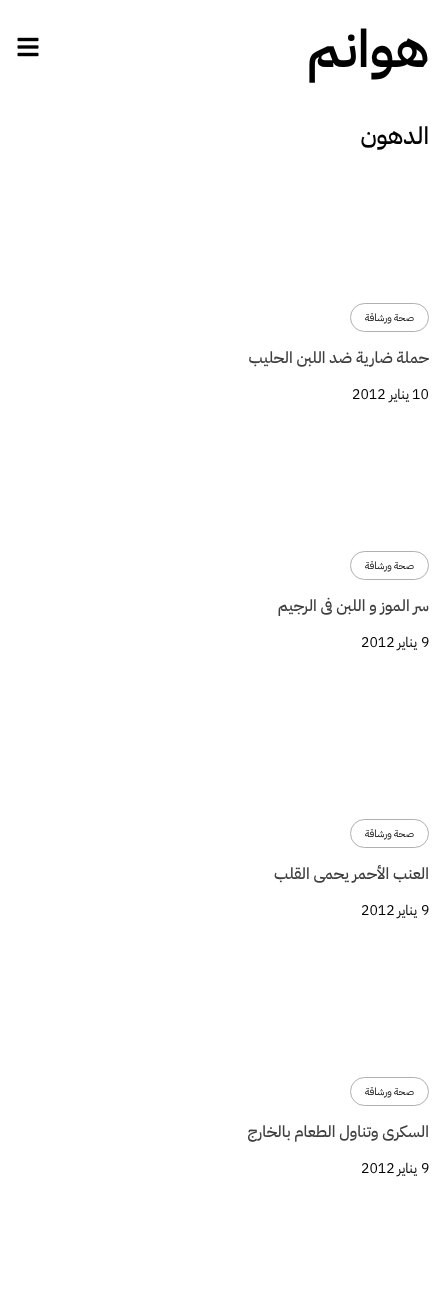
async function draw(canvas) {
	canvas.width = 445;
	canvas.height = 1303;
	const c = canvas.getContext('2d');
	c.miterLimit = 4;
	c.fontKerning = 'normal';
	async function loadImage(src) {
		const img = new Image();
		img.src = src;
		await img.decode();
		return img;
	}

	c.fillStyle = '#fff';
	c.fillRect(0, 0, 445, 1303);
	c.direction = 'rtl';
	c.font = '600 52px IBM Plex Sans Arabic';
	c.fillStyle = '#000';
	c.fillText('هوانم', 429, 67);
	c.drawImage(await loadImage('img1.png'), 17, 37, 22, 20);
	c.font = '500 24px IBM Plex Sans Arabic';
	c.fillText('الدهون', 429, 144);
	c.beginPath();
	c.roundRect(350.5, 303.5, 78, 28, 14);
	c.strokeStyle = '#b1b0b0';
	c.stroke();
	c.font = '10px IBM Plex Sans Arabic';
	c.fillText('صحة ورشاقة', 414, 321);
	c.font = '500 16px IBM Plex Sans Arabic';
	c.fillStyle = '#403f40';
	c.fillText('حملة ضارية ضد اللبن الحليب', 429, 363);
	c.direction = 'ltr';
	c.font = '14px IBM Plex Sans Arabic';
	c.fillStyle = '#000';
	c.fillText('10', 412, 399);
	c.direction = 'rtl';
	c.fillText('يناير', 409, 399);
	c.direction = 'ltr';
	c.fillText('2012', 352, 399);
	c.beginPath();
	c.roundRect(350.5, 551.5, 78, 28, 14);
	c.stroke();
	c.direction = 'rtl';
	c.font = '10px IBM Plex Sans Arabic';
	c.fillText('صحة ورشاقة', 414, 569);
	c.font = '500 16px IBM Plex Sans Arabic';
	c.fillStyle = '#403f40';
	c.fillText('سر الموز و اللبن فى الرجيم', 429, 611);
	c.direction = 'ltr';
	c.font = '14px IBM Plex Sans Arabic';
	c.fillStyle = '#000';
	c.fillText('9', 421, 647);
	c.direction = 'rtl';
	c.fillText('يناير', 417, 647);
	c.direction = 'ltr';
	c.fillText('2012', 361, 647);
	c.beginPath();
	c.roundRect(350.5, 819.5, 78, 28, 14);
	c.stroke();
	c.direction = 'rtl';
	c.font = '10px IBM Plex Sans Arabic';
	c.fillText('صحة ورشاقة', 414, 837);
	c.font = '500 16px IBM Plex Sans Arabic';
	c.fillStyle = '#403f40';
	c.fillText('العنب الأحمر يحمى القلب', 429, 879);
	c.direction = 'ltr';
	c.font = '14px IBM Plex Sans Arabic';
	c.fillStyle = '#000';
	c.fillText('9', 421, 915);
	c.direction = 'rtl';
	c.fillText('يناير', 417, 915);
	c.direction = 'ltr';
	c.fillText('2012', 361, 915);
	c.beginPath();
	c.roundRect(350.5, 1077.5, 78, 28, 14);
	c.stroke();
	c.direction = 'rtl';
	c.font = '10px IBM Plex Sans Arabic';
	c.fillText('صحة ورشاقة', 414, 1095);
	c.font = '500 16px IBM Plex Sans Arabic';
	c.fillStyle = '#403f40';
	c.fillText('السكرى وتناول الطعام بالخارج', 429, 1137);
	c.direction = 'ltr';
	c.font = '14px IBM Plex Sans Arabic';
	c.fillStyle = '#000';
	c.fillText('9', 421, 1173);
	c.direction = 'rtl';
	c.fillText('يناير', 417, 1173);
	c.direction = 'ltr';
	c.fillText('2012', 361, 1173);
}

draw(document.querySelector('canvas'));
